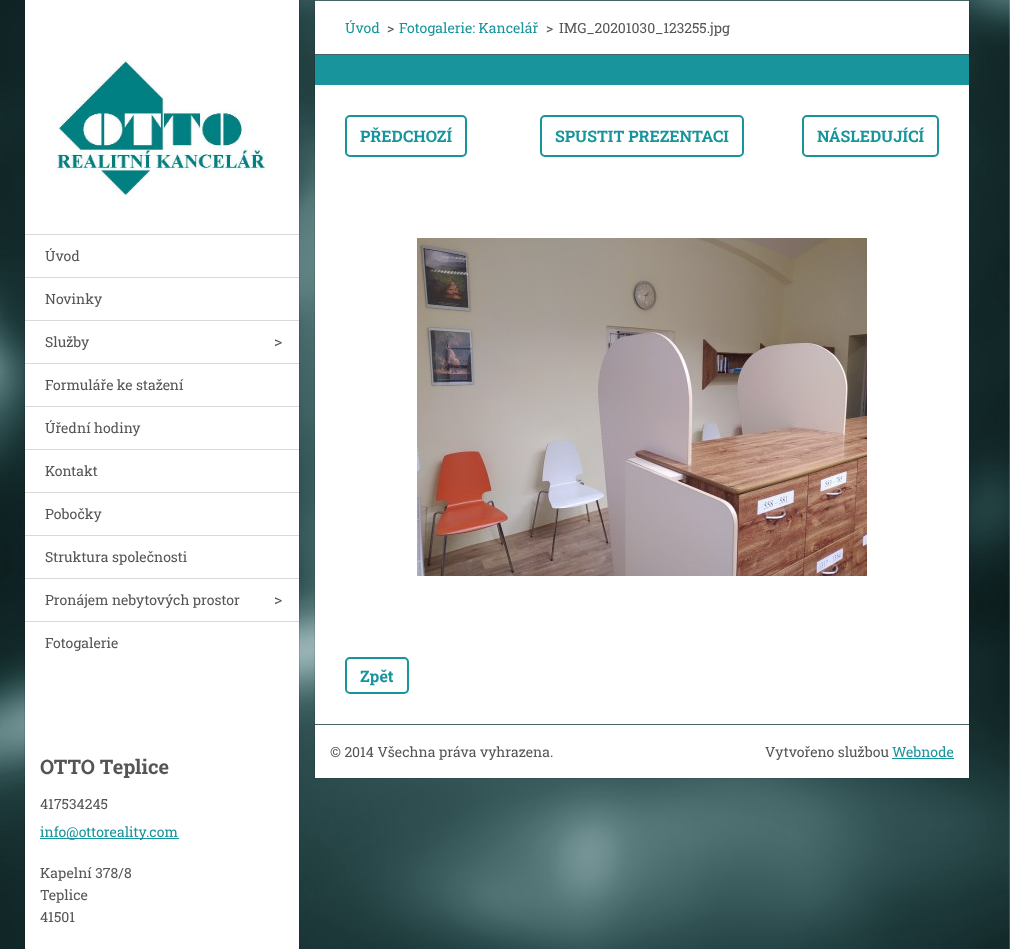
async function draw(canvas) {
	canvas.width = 1010;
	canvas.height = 949;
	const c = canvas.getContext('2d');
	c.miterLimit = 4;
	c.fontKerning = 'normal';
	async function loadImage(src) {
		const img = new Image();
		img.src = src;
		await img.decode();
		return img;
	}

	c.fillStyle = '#fff';
	c.fillRect(0, 0, 1010, 949);
	c.drawImage(await loadImage('img1.png'), 0, 0, 1010, 949);
	c.fillRect(25, 0, 274, 949);
	c.strokeStyle = '#0000001a';
	c.strokeRect(24.5, -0.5, 275, 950);
	c.drawImage(await loadImage('img2.png'), 56, 60, 210, 138);
	c.fillStyle = '#d9d9d9';
	c.fillRect(25, 234, 274, 1);
	c.font = '14px Roboto Slab';
	c.fillStyle = '#555';
	c.fillText('Úvod', 45, 261);
	c.fillStyle = '#d9d9d9';
	c.fillRect(25, 277, 274, 1);
	c.fillStyle = '#555';
	c.fillText('Novinky', 45, 304);
	c.fillStyle = '#d9d9d9';
	c.fillRect(25, 320, 274, 1);
	c.fillStyle = '#555';
	c.fillText('Služby', 45, 347);
	c.font = '16px Roboto Slab';
	c.fillText('>', 274, 347);
	c.fillStyle = '#d9d9d9';
	c.fillRect(25, 363, 274, 1);
	c.font = '14px Roboto Slab';
	c.fillStyle = '#555';
	c.fillText('Formuláře ke stažení', 45, 390);
	c.fillStyle = '#d9d9d9';
	c.fillRect(25, 406, 274, 1);
	c.fillStyle = '#555';
	c.fillText('Úřední hodiny', 45, 433);
	c.fillStyle = '#d9d9d9';
	c.fillRect(25, 449, 274, 1);
	c.fillStyle = '#555';
	c.fillText('Kontakt', 45, 476);
	c.fillStyle = '#d9d9d9';
	c.fillRect(25, 492, 274, 1);
	c.fillStyle = '#555';
	c.fillText('Pobočky', 45, 519);
	c.fillStyle = '#d9d9d9';
	c.fillRect(25, 535, 274, 1);
	c.fillStyle = '#555';
	c.fillText('Struktura společnosti', 45, 562);
	c.fillStyle = '#d9d9d9';
	c.fillRect(25, 578, 274, 1);
	c.fillStyle = '#555';
	c.fillText('Pronájem nebytových prostor', 45, 605);
	c.font = '16px Roboto Slab';
	c.fillText('>', 274, 605);
	c.fillStyle = '#d9d9d9';
	c.fillRect(25, 621, 274, 1);
	c.font = '14px Roboto Slab';
	c.fillStyle = '#555';
	c.fillText('Fotogalerie', 45, 648);
	c.font = 'bold 20px Roboto Slab';
	c.fillText('OTTO Teplice', 40, 774);
	c.font = '14px Roboto Slab';
	c.fillText('417534245', 40, 809);
	c.fillStyle = '#17949c';
	c.fillRect(40, 838, 139, 1);
	c.fillText('info@ottoreality.com', 40, 837);
	c.fillStyle = '#555';
	for (const [text, x, y] of [
		['Kapelní 378/8', 40, 878],
		['Teplice', 40, 900],
		['41501', 40, 922],
	]) {
		c.fillText(text, x, y);
	}
	c.fillStyle = '#fff';
	c.fillRect(315, 1, 654, 53);
	c.fillStyle = '#476565';
	c.fillRect(315, 0, 654, 1);
	c.strokeRect(314.5, -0.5, 655, 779);
	c.fillStyle = '#17949c';
	c.fillText('Úvod', 345, 33);
	c.fillStyle = '#555';
	c.fillText('>', 387, 33);
	c.fillStyle = '#17949c';
	c.fillText('Fotogalerie: Kancelář', 399, 33);
	c.fillStyle = '#555';
	c.fillText('>', 546, 33);
	c.fillText('IMG_20201030_123255.jpg', 559, 33);
	for (const [x, y, w, h, color] of [
		[315, 54, 654, 1, '#476565'],
		[315, 55, 654, 30, '#17949c'],
		[315, 85, 654, 639, '#fff'],
	]) {
		c.fillStyle = color;
		c.fillRect(x, y, w, h);
	}
	c.beginPath();
	c.roundRect(346, 116, 120, 40, 4);
	c.strokeStyle = '#17949c';
	c.lineWidth = 2;
	c.stroke();
	c.font = 'bold 16px Roboto Slab';
	c.fillStyle = '#17949c';
	c.fillText('PŘEDCHOZÍ', 360, 142);
	c.beginPath();
	c.roundRect(541, 116, 202, 40, 4);
	c.stroke();
	c.fillText('SPUSTIT PREZENTACI', 555, 142);
	c.beginPath();
	c.roundRect(803, 116, 135, 40, 4);
	c.stroke();
	c.fillText('NÁSLEDUJÍCÍ', 817, 142);
	c.drawImage(await loadImage('img3.png'), 417, 238, 450, 338);
	c.beginPath();
	c.roundRect(346, 658, 62, 35, 4);
	c.stroke();
	c.fillText('Zpět', 360, 682);
	c.fillStyle = '#fff';
	c.fillRect(315, 725, 654, 53);
	c.fillStyle = '#476565';
	c.fillRect(315, 724, 654, 1);
	c.font = '14px Roboto Slab';
	c.fillStyle = '#555';
	c.fillText('© 2014 Všechna práva vyhrazena.', 330, 757);
	c.fillText('Vytvořeno službou', 765, 757);
	c.fillStyle = '#17949c';
	c.fillText('Webnode', 892, 757);
	c.fillRect(892, 758, 62, 1);
}

draw(document.querySelector('canvas'));
